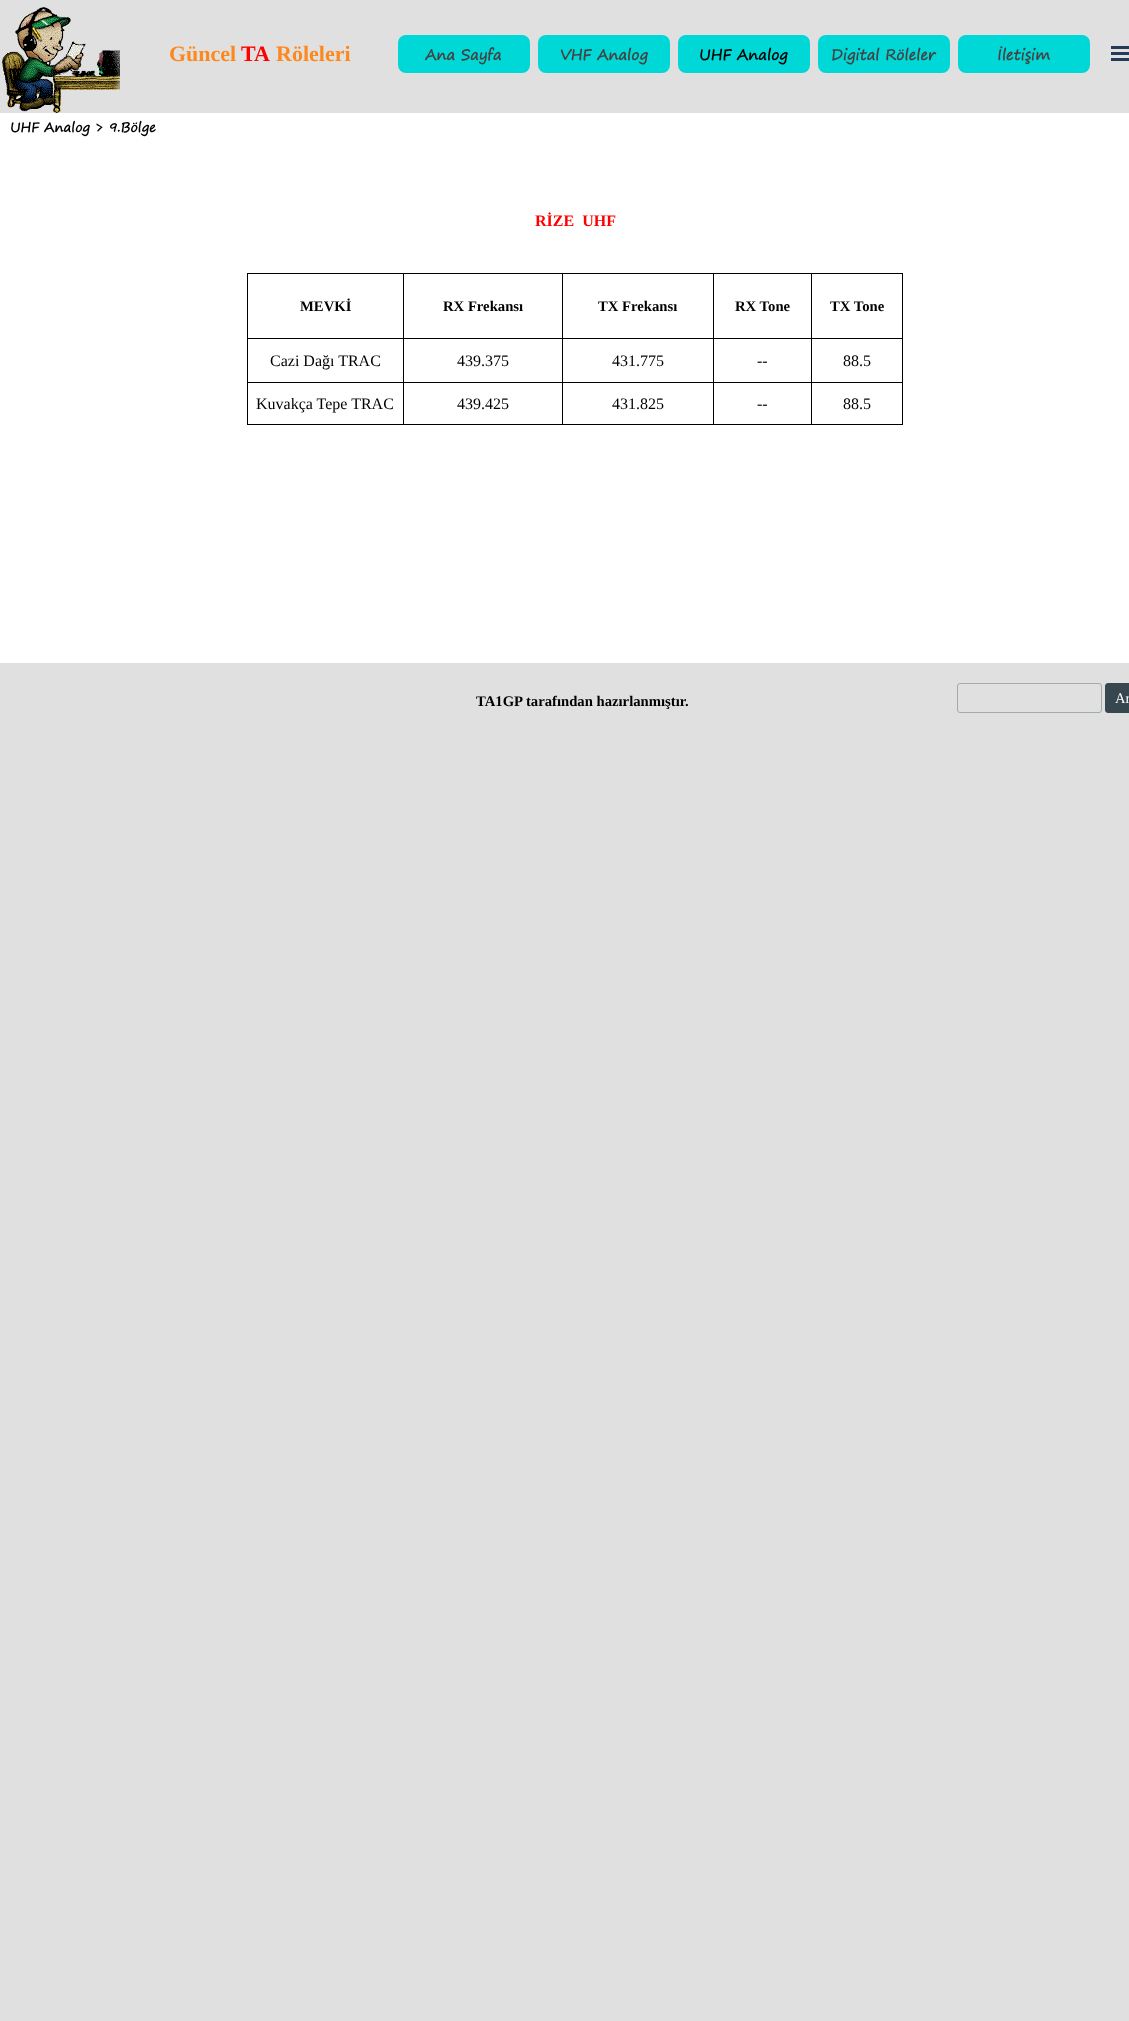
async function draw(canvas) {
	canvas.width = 1129;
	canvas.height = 2021;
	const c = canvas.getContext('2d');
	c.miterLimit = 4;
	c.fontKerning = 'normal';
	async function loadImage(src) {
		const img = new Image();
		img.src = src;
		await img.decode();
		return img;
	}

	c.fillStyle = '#e0e0e0';
	c.fillRect(0, 0, 1129, 2021);
	c.drawImage(await loadImage('img1.png'), 1, 7, 119, 106);
	c.font = 'bold 22px Liberation Serif';
	c.fillStyle = '#fd881e';
	c.fillText('Güncel', 169, 61);
	c.fillStyle = '#f00';
	c.fillText('TA', 241, 61);
	c.fillStyle = '#fd881e';
	c.fillText('Röleleri', 276, 61);
	c.fillStyle = '#00d7d7';
	c.beginPath();
	c.roundRect(398, 35, 132, 38, 8);
	c.fill();
	c.font = 'bold 14.7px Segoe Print';
	c.fillStyle = '#434343';
	c.fillText('Ana Sayfa', 425, 60);
	c.fillStyle = '#00d7d7';
	c.beginPath();
	c.roundRect(538, 35, 132, 38, 8);
	c.fill();
	c.fillStyle = '#434343';
	c.fillText('VHF Analog', 560, 60);
	c.fillStyle = '#00d7d7';
	c.beginPath();
	c.roundRect(678, 35, 132, 38, 8);
	c.fill();
	c.fillStyle = '#000';
	c.fillText('UHF Analog', 699, 60);
	c.fillStyle = '#00d7d7';
	c.beginPath();
	c.roundRect(818, 35, 132, 38, 8);
	c.fill();
	c.fillStyle = '#434343';
	c.fillText('Digital Röleler', 831, 60);
	c.fillStyle = '#00d7d7';
	c.beginPath();
	c.roundRect(958, 35, 132, 38, 8);
	c.fill();
	c.fillStyle = '#434343';
	c.fillText('İletişim', 997, 60);
	for (const [x, y, w, h, color] of [
		[1111, 46, 18, 3, '#253a58'],
		[1111, 52, 18, 3, '#253a58'],
		[1111, 58, 18, 3, '#253a58'],
		[0, 113, 1129, 550, '#fff'],
	]) {
		c.fillStyle = color;
		c.fillRect(x, y, w, h);
	}
	c.font = 'bold 13.25px Segoe Print';
	c.fillStyle = '#000';
	c.fillText('UHF Analog > 9.Bölge', 10, 132);
	c.font = 'bold 16px Liberation Serif';
	c.fillStyle = '#f00';
	c.fillText('RİZE  UHF', 535, 226);
	for (const [x, y, w, h, color] of [
		[811, 273, 92, 1, '#000'],
		[811, 338, 92, 1, '#000'],
		[811, 382, 92, 1, '#000'],
		[902, 382, 1, 43, '#000'],
		[811, 424, 92, 1, '#000'],
		[811, 382, 1, 43, '#000'],
		[713, 382, 99, 1, '#000'],
		[811, 338, 1, 45, '#000'],
		[713, 338, 99, 1, '#000'],
		[811, 273, 1, 66, '#000'],
		[713, 273, 99, 1, '#000'],
		[713, 424, 99, 1, '#000'],
		[713, 382, 1, 43, '#000'],
		[562, 382, 152, 1, '#000'],
		[713, 338, 1, 45, '#000'],
		[562, 338, 152, 1, '#000'],
		[713, 273, 1, 66, '#000'],
		[562, 273, 152, 1, '#000'],
		[562, 424, 152, 1, '#000'],
		[562, 382, 1, 43, '#000'],
		[403, 382, 160, 1, '#000'],
		[562, 338, 1, 45, '#000'],
		[403, 338, 160, 1, '#000'],
		[562, 273, 1, 66, '#000'],
		[403, 273, 160, 1, '#000'],
		[403, 424, 160, 1, '#000'],
		[403, 382, 1, 43, '#000'],
		[247, 382, 157, 1, '#000'],
		[403, 338, 1, 45, '#000'],
		[247, 338, 157, 1, '#000'],
		[403, 273, 1, 66, '#000'],
		[247, 273, 157, 1, '#000'],
		[247, 424, 157, 1, '#000'],
		[247, 382, 1, 43, '#000'],
		[247, 338, 1, 45, '#000'],
		[247, 273, 1, 66, '#000'],
	]) {
		c.fillStyle = color;
		c.fillRect(x, y, w, h);
	}
	c.font = 'bold 14.7px Liberation Serif';
	for (const [text, x, y] of [
		['MEVKİ', 300, 311],
		['RX Frekansı', 443, 311],
		['TX Frekansı', 598, 311],
		['RX Tone', 735, 311],
	]) {
		c.fillText(text, x, y);
	}
	c.fillRect(902, 338, 1, 45);
	c.fillRect(902, 273, 1, 66);
	c.fillText('TX Tone', 830, 311);
	c.font = '16px Liberation Serif';
	for (const [text, x, y] of [
		['Cazi Dağı TRAC', 270, 366],
		['439.375', 457, 366],
		['431.775', 612, 366],
		['--', 757, 366],
		['88.5', 843, 366],
		['Kuvakça Tepe TRAC', 256, 409],
		['439.425', 457, 409],
		['431.825', 612, 409],
		['--', 757, 409],
		['88.5', 843, 409],
	]) {
		c.fillText(text, x, y);
	}
	c.font = 'bold 14.7px Liberation Serif';
	c.fillText('TA1GP tarafından hazırlanmıştır.', 476, 706);
	c.beginPath();
	c.roundRect(957.5, 683.5, 144, 29, 2.5);
	c.strokeStyle = '#9fabb0';
	c.stroke();
	c.fillStyle = '#36474f';
	c.beginPath();
	c.roundRect(1105.5, 683.5, 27, 29, 2.5);
	c.fill();
	c.strokeStyle = '#37474f';
	c.stroke();
	c.font = '14.7px Liberation Serif';
	c.fillStyle = '#fff';
	c.fillText('Ar', 1115, 703);
}

draw(document.querySelector('canvas'));
